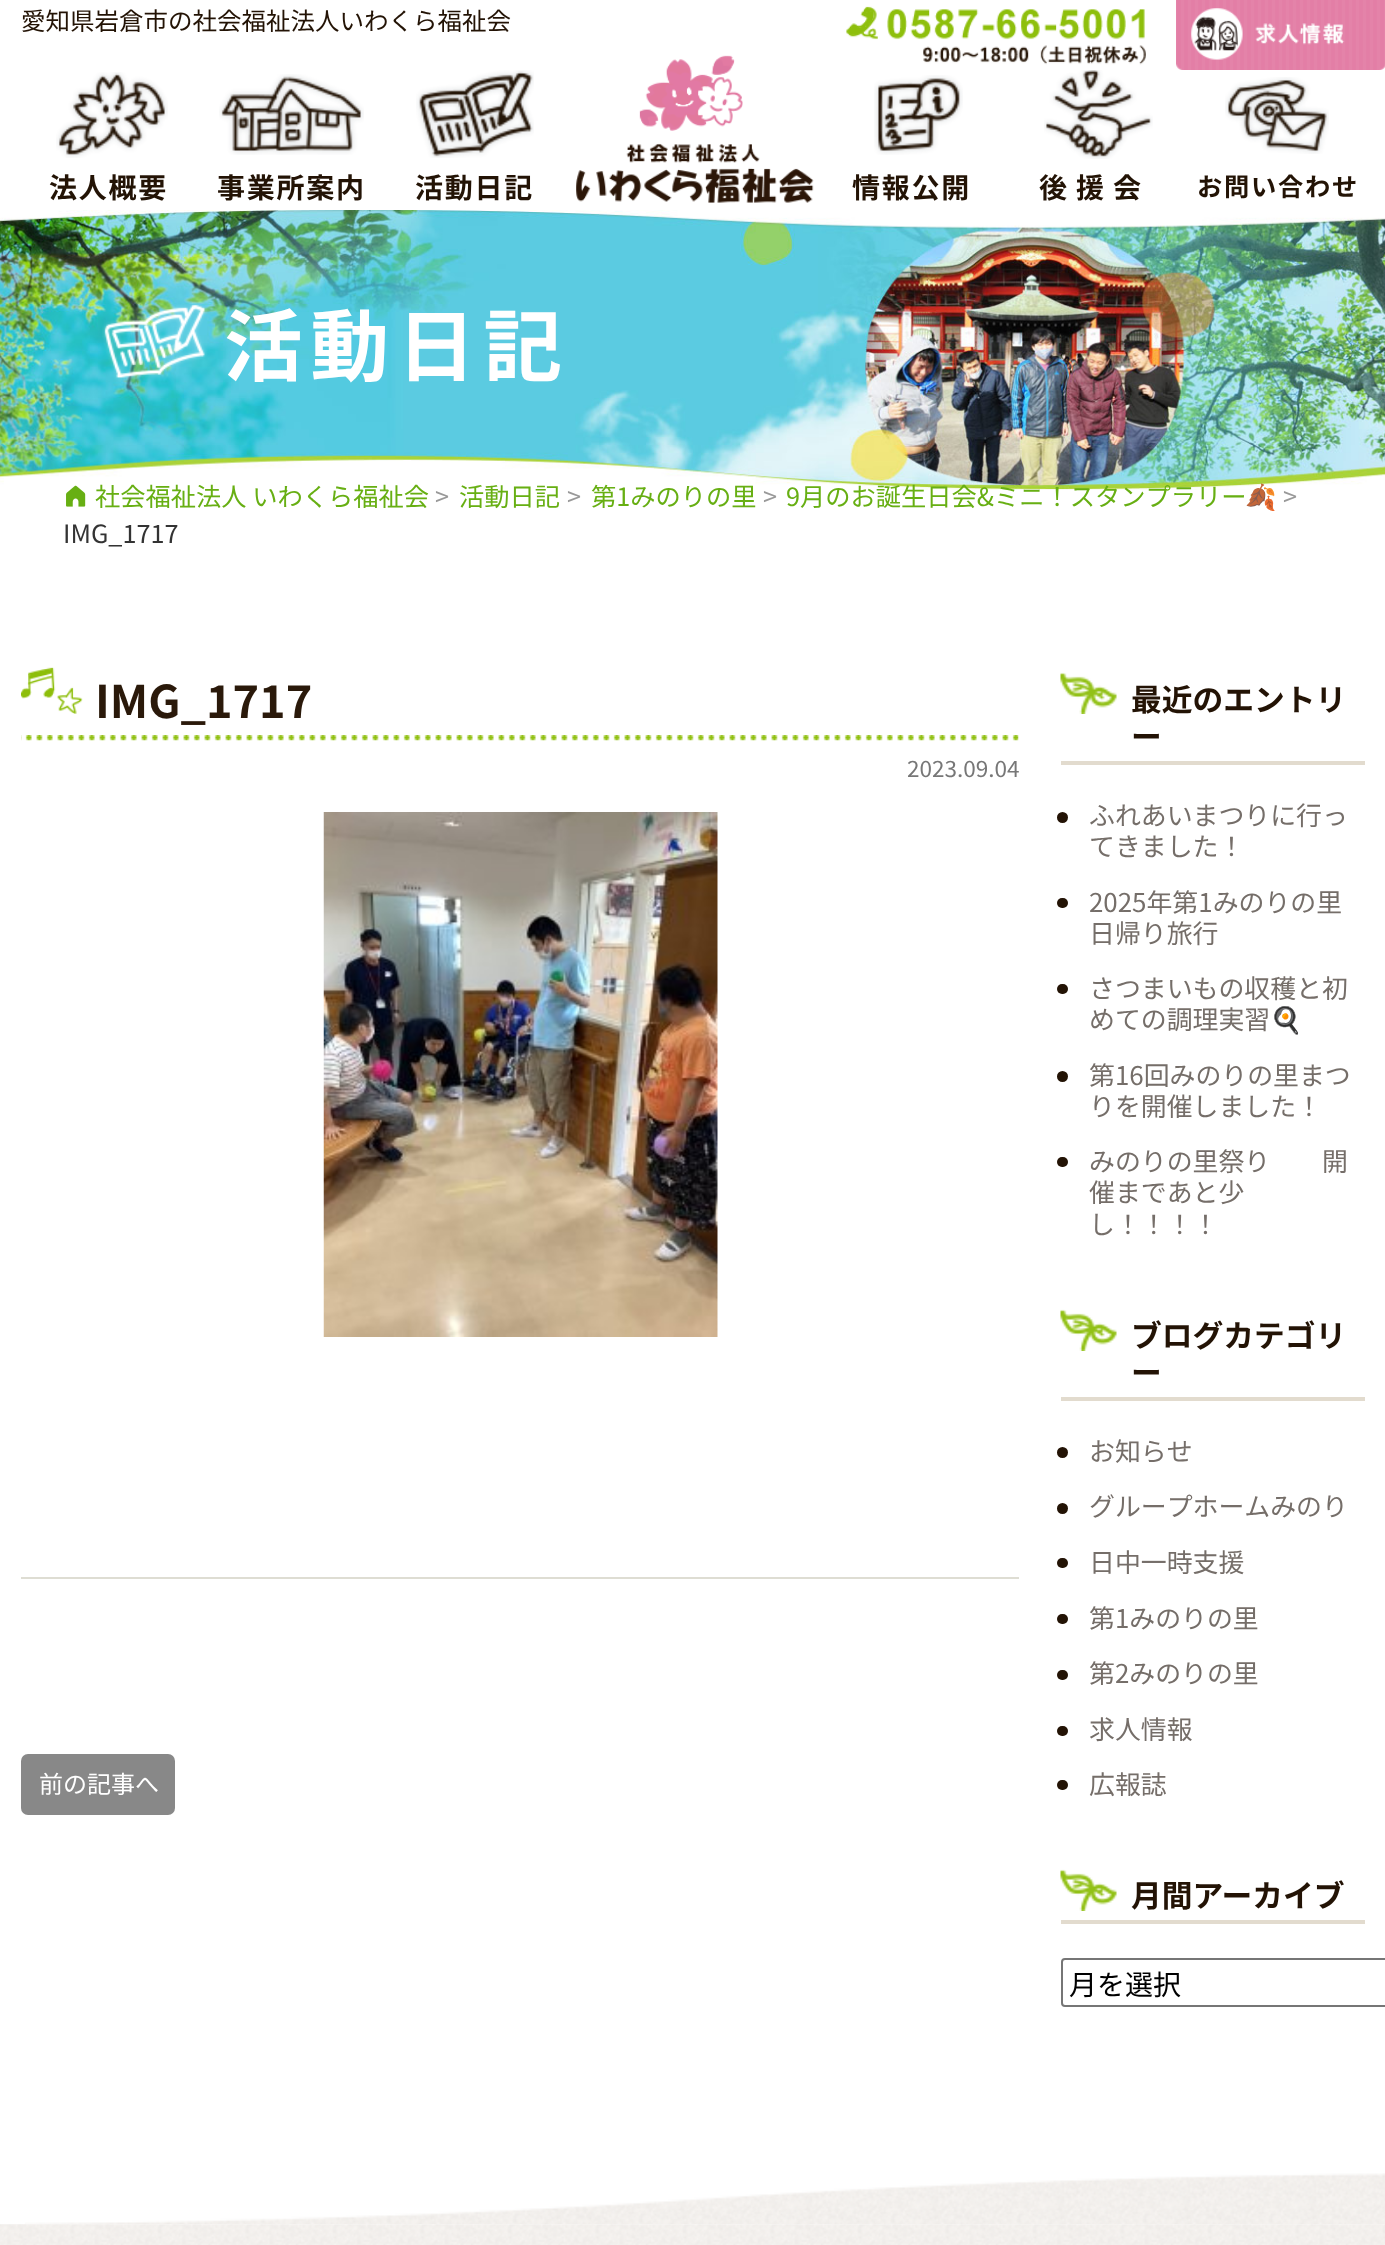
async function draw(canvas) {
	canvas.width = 1385;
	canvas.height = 2245;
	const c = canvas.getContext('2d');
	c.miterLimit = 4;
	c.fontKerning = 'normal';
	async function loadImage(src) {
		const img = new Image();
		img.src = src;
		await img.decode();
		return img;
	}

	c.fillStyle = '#fff';
	c.fillRect(0, 0, 1385, 2245);
	c.font = '24.5px Noto Sans JP';
	c.fillStyle = '#231305';
	c.fillText('愛知県岩倉市の社会福祉法人いわくら福祉会', 21, 30);
	c.drawImage(await loadImage('img1.png'), 846, 6, 300, 64);
	c.drawImage(await loadImage('img2.png'), 1176, 0, 209, 70);
	c.drawImage(await loadImage('img3.png'), 56, 72, 112, 86);
	c.letterSpacing = '1.75px';
	c.font = 'bold 28px Noto Sans JP';
	c.fillText('法人概要', 49, 198);
	c.drawImage(await loadImage('img4.png'), 219, 74, 145, 81);
	c.fillText('事業所案内', 217, 198);
	c.drawImage(await loadImage('img5.png'), 416, 70, 118, 88);
	c.fillText('活動日記', 415, 198);
	c.drawImage(await loadImage('img6.png'), 576, 55, 238, 148);
	c.drawImage(await loadImage('img7.png'), 874, 75, 89, 80);
	c.fillText('情報公開', 852, 198);
	c.drawImage(await loadImage('img8.png'), 1044, 70, 109, 89);
	c.letterSpacing = '9px';
	c.fillText('後援会', 1039, 198);
	c.drawImage(await loadImage('img9.png'), 1225, 77, 104, 77);
	c.letterSpacing = '1.75px';
	c.font = 'bold 25.25px Noto Sans JP';
	c.fillText('お問い合わせ', 1197, 196);
	c.drawImage(await loadImage('img10.png'), 0, 210, 1385, 280);
	c.drawImage(await loadImage('img11.png'), 102, 302, 105, 79);
	c.letterSpacing = '8px';
	c.font = 'bold 78.5px Noto Sans JP';
	c.fillStyle = '#fff';
	c.fillText('活動日記', 224, 375);
	c.drawImage(await loadImage('img12.png'), 66, 485, 20, 22);
	c.letterSpacing = '0px';
	c.font = '25.25px Noto Sans JP';
	c.fillStyle = '#67af13';
	c.fillText('社会福祉法人 いわくら福祉会', 95, 506);
	c.fillStyle = '#999';
	c.fillText('>', 435, 506);
	c.fillStyle = '#67af13';
	c.fillText('活動日記', 459, 506);
	c.fillStyle = '#999';
	c.fillText('>', 567, 506);
	c.fillStyle = '#67af13';
	c.fillText('第1みのりの里', 591, 506);
	c.fillStyle = '#999';
	c.fillText('>', 763, 506);
	c.fillStyle = '#67af13';
	c.fillText('9月のお誕生日会&ミニ！スタンプラリー', 786, 506);
	c.font = '25.25px Noto Color Emoji';
	c.fillText('🍂', 1245, 506);
	c.font = '25.25px Noto Sans JP';
	c.fillStyle = '#999';
	c.fillText('>', 1283, 506);
	c.fillStyle = '#333';
	c.fillText('IMG_1717', 63, 543);
	c.drawImage(await loadImage('img13.png'), 21, 735, 998, 6);
	c.drawImage(await loadImage('img14.png'), 21, 667, 62, 47);
	c.font = 'bold 45px Noto Sans JP';
	c.fillStyle = '#2a190a';
	c.fillText('IMG_1717', 95, 718);
	c.font = '22.5px Noto Sans JP';
	c.fillStyle = '#777';
	c.fillText('2023.09.04', 907, 777);
	c.drawImage(await loadImage('img15.png'), 323, 812, 395, 525);
	c.fillStyle = '#deddd3';
	c.fillRect(21, 1577, 998, 2);
	c.fillStyle = '#888';
	c.beginPath();
	c.roundRect(21, 1754, 154, 61, 7);
	c.fill();
	c.font = '24px Noto Sans JP';
	c.fillStyle = '#fff';
	c.fillText('前の記事へ', 39, 1793);
	c.drawImage(await loadImage('img16.png'), 1060, 672, 57, 42);
	c.fillStyle = '#e2dbce';
	c.fillRect(1061, 761, 304, 4);
	c.font = 'bold 30.75px Noto Sans JP';
	c.fillStyle = '#231305';
	c.fillText('最近のエントリ', 1131, 711);
	c.fillText('ー', 1131, 748);
	c.beginPath();
	c.arc(1062.5, 817.5, 5.5, 0, 2 * Math.PI);
	c.fill();
	c.font = '25.9px Noto Sans JP';
	c.fillStyle = '#756e69';
	c.fillText('ふれあいまつりに行っ', 1089, 825);
	c.fillText('てきました！', 1089, 856);
	c.fillStyle = '#231305';
	c.beginPath();
	c.roundRect(1057, 898, 11, 10, 5);
	c.fill();
	c.fillStyle = '#756e69';
	c.fillText('2025年第1みのりの里', 1089, 912);
	c.fillText('日帰り旅行', 1089, 943);
	c.fillStyle = '#231305';
	c.beginPath();
	c.roundRect(1057, 984, 11, 10, 5);
	c.fill();
	c.fillStyle = '#756e69';
	c.fillText('さつまいもの収穫と初', 1089, 998);
	c.fillText('めての調理実習', 1089, 1029);
	c.font = '25.9px "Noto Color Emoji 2"';
	c.fillText('🍳', 1270, 1029);
	c.fillStyle = '#231305';
	c.beginPath();
	c.arc(1062.5, 1076.5, 5.5, 0, 2 * Math.PI);
	c.fill();
	c.font = '25.9px Noto Sans JP';
	c.fillStyle = '#756e69';
	c.fillText('第16回みのりの里まつ', 1089, 1085);
	c.fillText('りを開催しました！', 1089, 1116);
	c.fillStyle = '#231305';
	c.beginPath();
	c.roundRect(1057, 1157, 11, 10, 5);
	c.fill();
	c.fillStyle = '#756e69';
	for (const [text, x, y] of [
		['みのりの里祭り　　開', 1089, 1171],
		['催まであと少', 1089, 1202],
		['し！！！！', 1089, 1234],
	]) {
		c.fillText(text, x, y);
	}
	c.drawImage(await loadImage('img16.png'), 1060, 1309, 57, 42);
	c.fillStyle = '#e2dbce';
	c.fillRect(1061, 1397, 304, 4);
	c.font = 'bold 30.75px Noto Sans JP';
	c.fillStyle = '#231305';
	c.fillText('ブログカテゴリ', 1131, 1347);
	c.fillText('ー', 1131, 1384);
	c.beginPath();
	c.arc(1062.5, 1452.5, 5.5, 0, 2 * Math.PI);
	c.fill();
	c.font = '25.9px Noto Sans JP';
	c.fillStyle = '#756e69';
	c.fillText('お知らせ', 1089, 1461);
	c.fillStyle = '#231305';
	c.beginPath();
	c.arc(1062.5, 1508.5, 5.5, 0, 2 * Math.PI);
	c.fill();
	c.fillStyle = '#756e69';
	c.fillText('グループホームみのり', 1089, 1516);
	c.fillStyle = '#231305';
	c.beginPath();
	c.roundRect(1057, 1558, 11, 10, 5);
	c.fill();
	c.fillStyle = '#756e69';
	c.fillText('日中一時支援', 1089, 1572);
	c.fillStyle = '#231305';
	c.beginPath();
	c.roundRect(1057, 1614, 11, 10, 5);
	c.fill();
	c.fillStyle = '#756e69';
	c.fillText('第1みのりの里', 1089, 1628);
	c.fillStyle = '#231305';
	c.beginPath();
	c.roundRect(1057, 1670, 11, 10, 5);
	c.fill();
	c.fillStyle = '#756e69';
	c.fillText('第2みのりの里', 1089, 1683);
	c.fillStyle = '#231305';
	c.beginPath();
	c.roundRect(1057, 1726, 11, 10, 5);
	c.fill();
	c.fillStyle = '#756e69';
	c.fillText('求人情報', 1089, 1739);
	c.fillStyle = '#231305';
	c.beginPath();
	c.roundRect(1057, 1780, 11, 10, 5);
	c.fill();
	c.fillStyle = '#756e69';
	c.fillText('広報誌', 1089, 1794);
	c.drawImage(await loadImage('img17.png'), 1060, 1869, 57, 42);
	c.fillStyle = '#e2dbce';
	c.fillRect(1061, 1920, 304, 4);
	c.font = 'bold 30.75px Noto Sans JP';
	c.fillStyle = '#231305';
	c.fillText('月間アーカイブ', 1131, 1907);
	c.beginPath();
	c.roundRect(1062, 1959, 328, 47, 3);
	c.strokeStyle = '#767676';
	c.lineWidth = 2;
	c.stroke();
	c.font = '28px Noto Sans JP';
	c.fillStyle = '#000';
	c.fillText('月を選択', 1069, 1995);
	c.drawImage(await loadImage('img18.png'), 0, 2224, 1385, 21);
	c.drawImage(await loadImage('img19.png'), 25, 2173, 1360, 51);
}

draw(document.querySelector('canvas'));
